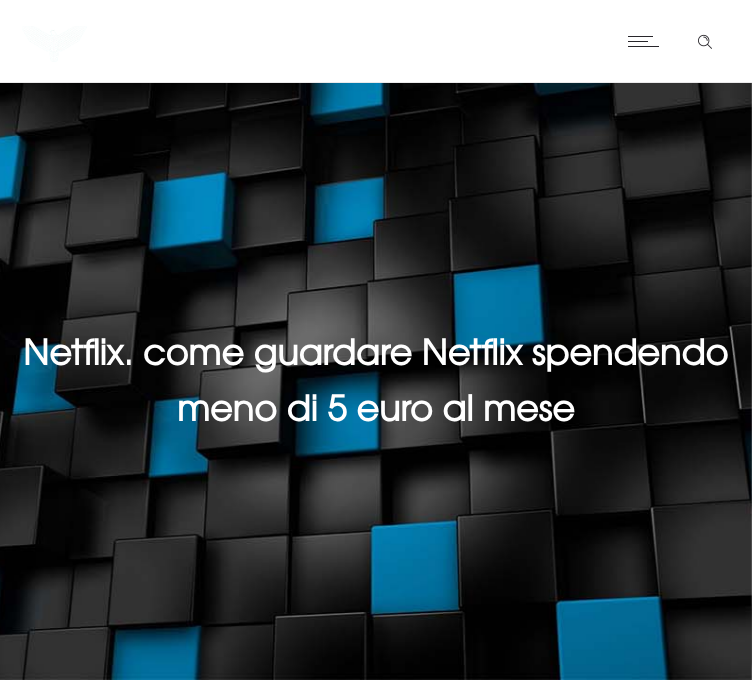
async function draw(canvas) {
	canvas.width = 752;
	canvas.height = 680;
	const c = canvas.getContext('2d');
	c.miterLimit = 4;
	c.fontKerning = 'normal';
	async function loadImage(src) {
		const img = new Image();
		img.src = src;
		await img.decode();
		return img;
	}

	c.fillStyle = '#fff';
	c.fillRect(0, 0, 752, 680);
	c.fillStyle = '#eae9ea';
	c.fillRect(0, 82, 752, 1);
	c.drawImage(await loadImage('img1.png'), 22, 26, 65, 36);
	for (const [x, y, w, h, color] of [
		[628, 36, 25, 1, '#28262b'],
		[628, 41, 20, 1, '#28262b'],
		[628, 46, 31, 1, '#28262b'],
	]) {
		c.fillStyle = color;
		c.fillRect(x, y, w, h);
	}
	c.drawImage(await loadImage('img2.png'), 698, 34, 14, 15);
	c.fillStyle = '#808080';
	c.filter = 'blur(2.5px)';
	c.beginPath();
	c.roundRect(682, 606, 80, 60, 2);
	c.fill();
	c.filter = 'none';
	c.drawImage(await loadImage('img3.png'), 0, 83, 752, 597);
	c.font = 'bold 35px TeX Gyre Adventor';
	c.fillStyle = '#fff';
	c.fillText('Netflix. come guardare Netflix spendendo', 23, 365);
	c.fillText('meno di 5 euro al mese', 177, 421);
}

draw(document.querySelector('canvas'));
